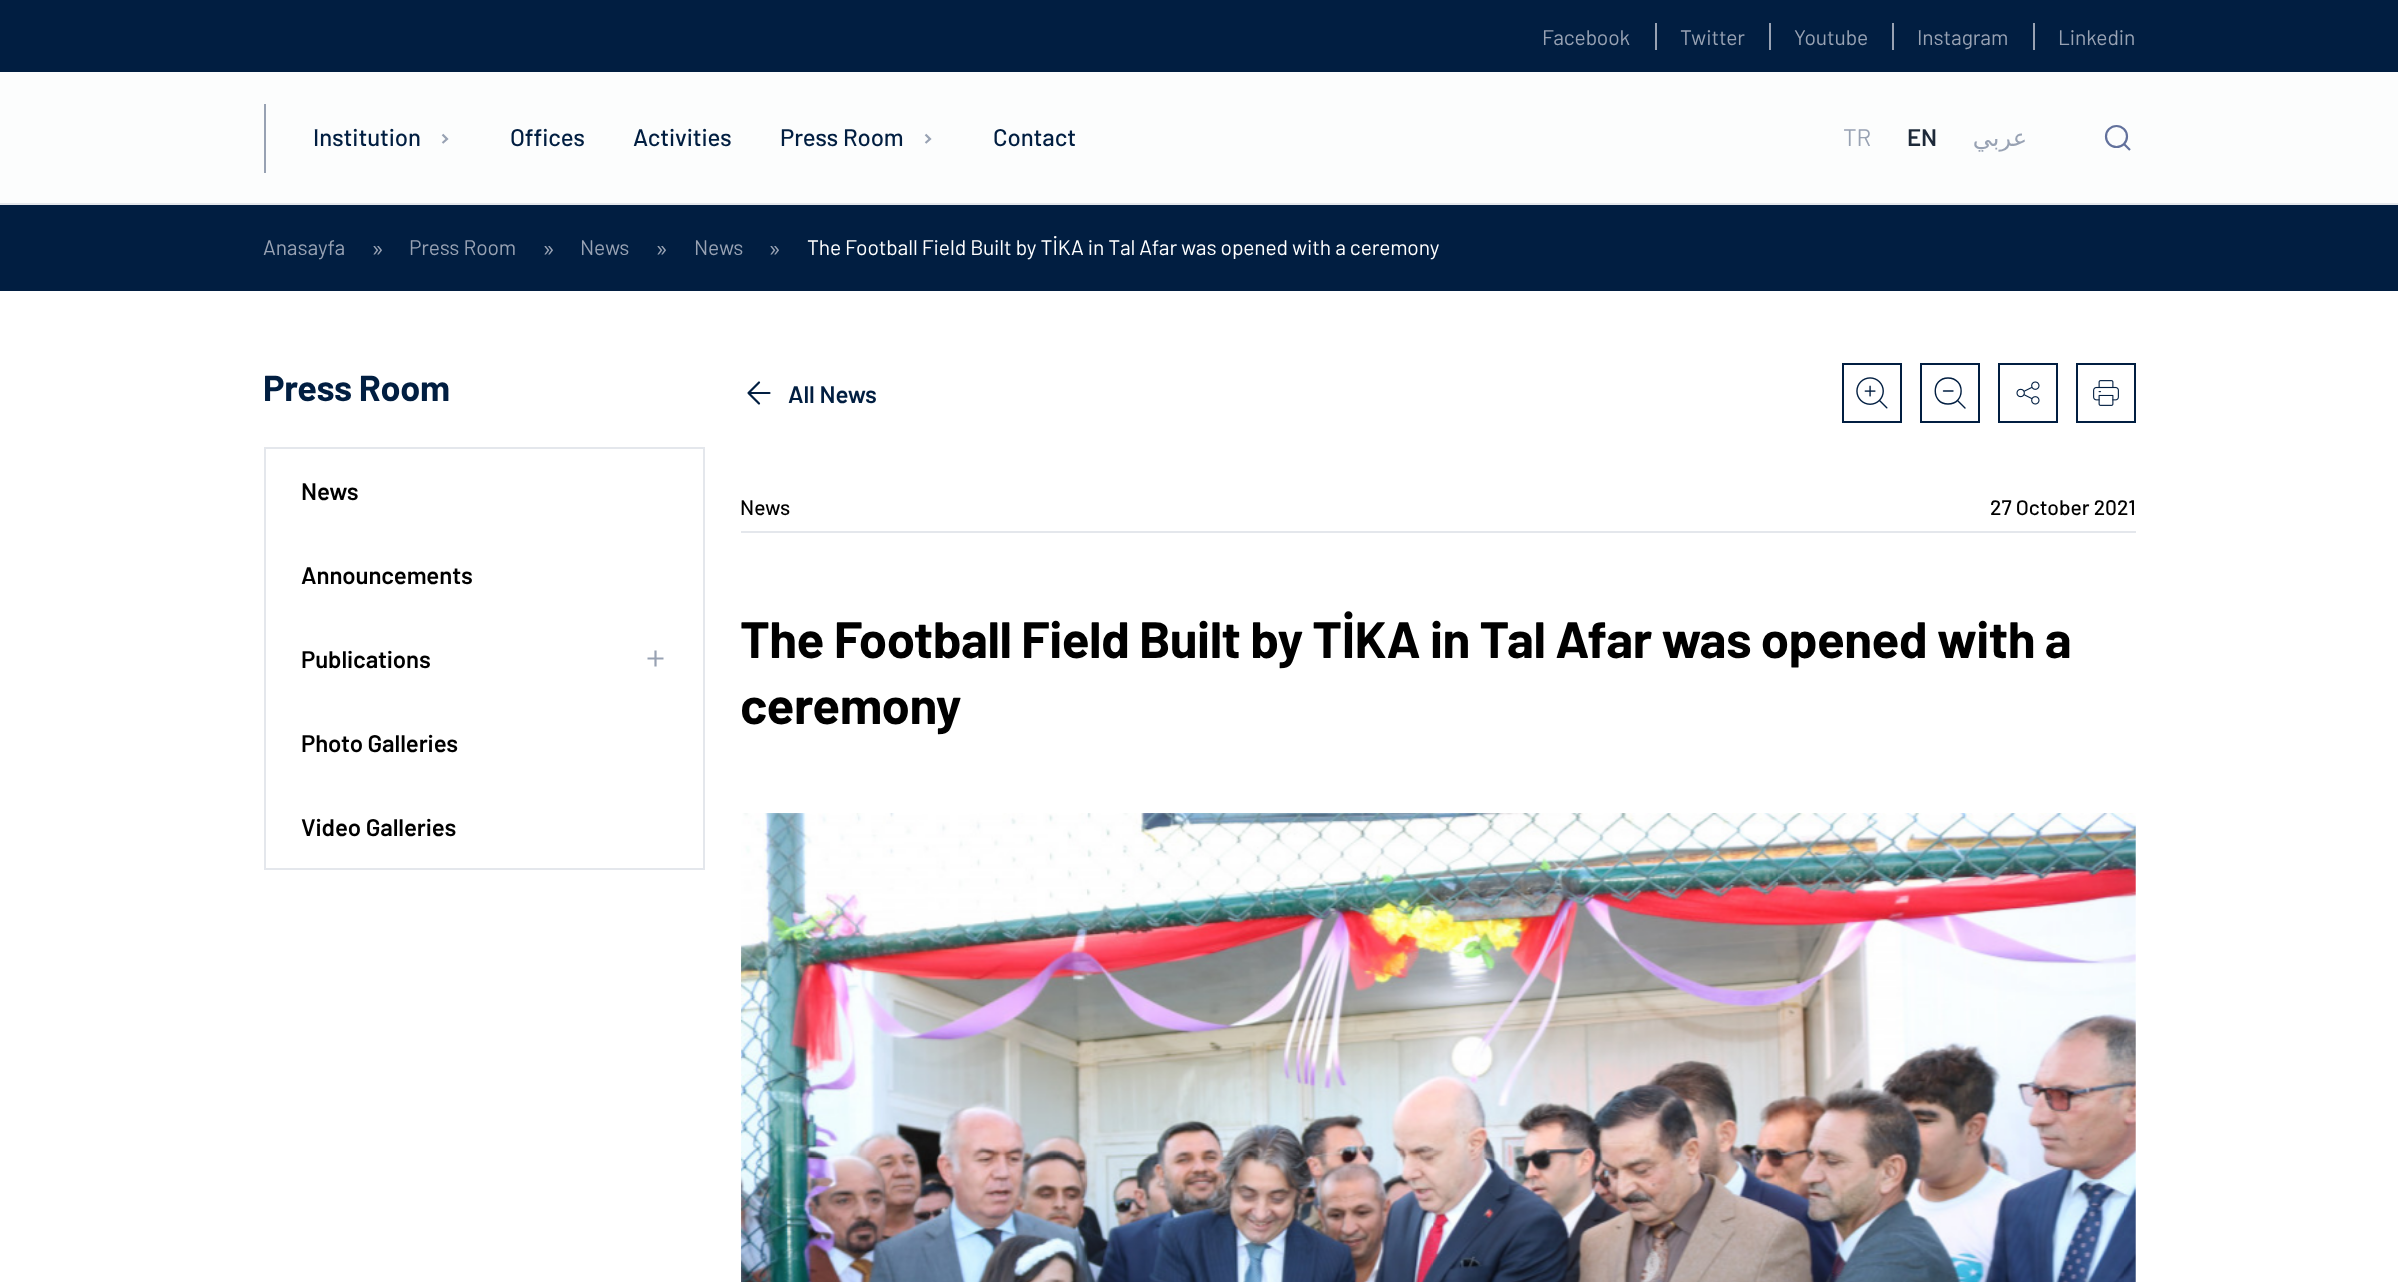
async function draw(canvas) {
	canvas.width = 2398;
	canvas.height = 1282;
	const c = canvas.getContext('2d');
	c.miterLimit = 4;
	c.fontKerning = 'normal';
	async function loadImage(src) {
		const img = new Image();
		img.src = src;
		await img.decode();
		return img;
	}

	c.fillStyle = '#fff';
	c.fillRect(0, 0, 2398, 1282);
	c.fillStyle = '#011e41';
	c.fillRect(0, 0, 2398, 72);
	c.fillStyle = '#98a2b3';
	c.fillRect(1655, 23, 2, 27);
	c.letterSpacing = '-0.1px';
	c.font = '21px Barlow';
	c.fillText('Facebook', 1542, 45);
	c.fillRect(1769, 23, 2, 27);
	c.fillText('Twitter', 1680, 45);
	c.fillRect(1892, 23, 2, 27);
	c.fillText('Youtube', 1794, 45);
	c.fillRect(2033, 23, 2, 27);
	c.fillText('Instagram', 1917, 45);
	c.fillText('Linkedin', 2058, 45);
	for (const [x, y, w, h, color] of [
		[0, 203, 2398, 2, '#e4e7ec'],
		[0, 72, 2398, 131, '#fcfdfd'],
		[264, 104, 2, 69, '#98a2b3'],
	]) {
		c.fillStyle = color;
		c.fillRect(x, y, w, h);
	}
	c.font = '500 24px Barlow';
	c.fillStyle = '#011e41';
	c.fillText('Institution', 313, 146);
	c.beginPath();
	c.moveTo(442.5, 143);
	c.lineTo(447, 139);
	c.lineTo(442.5, 134.5);
	c.strokeStyle = '#98a2b3';
	c.lineWidth = 2.2;
	c.stroke();
	for (const [text, x, y] of [
		['Offices', 510, 146],
		['Activities', 633, 146],
		['Press Room', 780, 146],
	]) {
		c.fillText(text, x, y);
	}
	c.beginPath();
	c.moveTo(925.5, 143);
	c.lineTo(930, 139);
	c.lineTo(925.5, 134.5);
	c.stroke();
	c.fillText('Contact', 993, 146);
	c.font = '24px Barlow';
	c.fillStyle = '#98a2b3';
	c.fillText('TR', 1843, 146);
	c.font = '600 24px Barlow';
	c.fillStyle = '#1d2939';
	c.fillText('EN', 1907, 146);
	c.direction = 'rtl';
	c.font = '24px DejaVu Sans';
	c.fillStyle = '#98a2b3';
	c.fillText('عربي', 2027, 146);
	c.beginPath();
	c.arc(2116.5, 136.5, 10.5, 0, 2 * Math.PI);
	c.strokeStyle = '#62719c';
	c.stroke();
	c.beginPath();
	c.moveTo(2124, 144);
	c.lineTo(2130, 150);
	c.stroke();
	c.fillStyle = '#011e41';
	c.fillRect(0, 205, 2398, 86);
	c.direction = 'ltr';
	c.font = '21px Barlow';
	c.fillStyle = '#98a2b3';
	c.fillText('Anasayfa', 263, 255);
	c.letterSpacing = '0px';
	c.font = '24px Barlow';
	c.fillText('»', 371, 257);
	c.letterSpacing = '-0.1px';
	c.font = '21px Barlow';
	c.fillText('Press Room', 409, 255);
	c.letterSpacing = '0px';
	c.font = '24px Barlow';
	c.fillText('»', 542, 257);
	c.letterSpacing = '-0.1px';
	c.font = '21px Barlow';
	c.fillText('News', 580, 255);
	c.letterSpacing = '0px';
	c.font = '24px Barlow';
	c.fillText('»', 655, 257);
	c.letterSpacing = '-0.1px';
	c.font = '21px Barlow';
	c.fillText('News', 694, 255);
	c.letterSpacing = '0px';
	c.font = '24px Barlow';
	c.fillText('»', 768, 257);
	c.letterSpacing = '-0.1px';
	c.font = '21px Barlow';
	c.fillStyle = '#fff';
	c.fillText('The Football Field Built by TİKA in Tal Afar was opened with a ceremony', 807, 255);
	c.letterSpacing = '-0.25px';
	c.font = 'bold 36px Barlow';
	c.fillStyle = '#011e41';
	c.fillText('Press Room', 263, 401);
	c.strokeStyle = '#e4e7ec';
	c.lineWidth = 2;
	c.strokeRect(265, 448, 439, 421);
	c.letterSpacing = '-0.1px';
	c.font = '600 24px Barlow';
	c.fillStyle = '#000';
	for (const [text, x, y] of [
		['News', 301, 500],
		['Announcements', 301, 584],
		['Publications', 301, 668],
	]) {
		c.fillText(text, x, y);
	}
	c.beginPath();
	c.moveTo(655.5, 650.5);
	c.lineTo(655.5, 666.5);
	c.moveTo(663.5, 658.5);
	c.lineTo(647.5, 658.5);
	c.strokeStyle = '#98a2b3';
	c.lineWidth = 2.2;
	c.stroke();
	c.fillText('Photo Galleries', 301, 752);
	c.fillText('Video Galleries', 301, 836);
	c.beginPath();
	c.moveTo(769.5, 393);
	c.lineTo(748.5, 393);
	c.moveTo(759, 403.5);
	c.lineTo(748.5, 393);
	c.lineTo(759, 382.5);
	c.strokeStyle = '#011e41';
	c.lineCap = 'round';
	c.lineJoin = 'round';
	c.stroke();
	c.fillStyle = '#011e41';
	c.fillText('All News', 788, 403);
	c.lineWidth = 2;
	c.lineJoin = 'miter';
	c.strokeRect(1843, 364, 58, 58);
	c.drawImage(await loadImage('img1.png'), 1856, 377, 32, 32);
	c.strokeRect(1921, 364, 58, 58);
	c.beginPath();
	c.moveTo(1948, 404);
	c.bezierCurveTo(1965.5, 404, 1965.5, 378, 1948, 378);
	c.bezierCurveTo(1931, 378, 1931, 404, 1948, 404);
	c.closePath();
	c.moveTo(1953, 391);
	c.lineTo(1943.5, 391);
	c.moveTo(1965, 408);
	c.lineTo(1957.5, 400.5);
	c.lineWidth = 1.4;
	c.lineJoin = 'round';
	c.stroke();
	c.lineWidth = 2;
	c.lineJoin = 'miter';
	c.strokeRect(1999, 364, 58, 58);
	c.drawImage(await loadImage('img2.png'), 2016, 381, 24, 24);
	c.strokeRect(2077, 364, 58, 58);
	c.drawImage(await loadImage('img3.png'), 2093, 380, 26, 26);
	c.fillStyle = '#e4e7ec';
	c.fillRect(741, 531, 1395, 2);
	c.letterSpacing = '0px';
	c.font = '500 21px Barlow';
	c.fillStyle = '#000';
	c.fillText('News', 740, 515);
	c.fillText('27 October 2021', 1990, 515);
	c.letterSpacing = '-0.5px';
	c.font = 'bold 51px Barlow';
	c.fillText('The Football Field Built by TİKA in Tal Afar was opened with a', 740, 658);
	c.fillText('ceremony', 740, 724);
	c.drawImage(await loadImage('img4.png'), 741, 813, 1395, 469);
}

draw(document.querySelector('canvas'));
